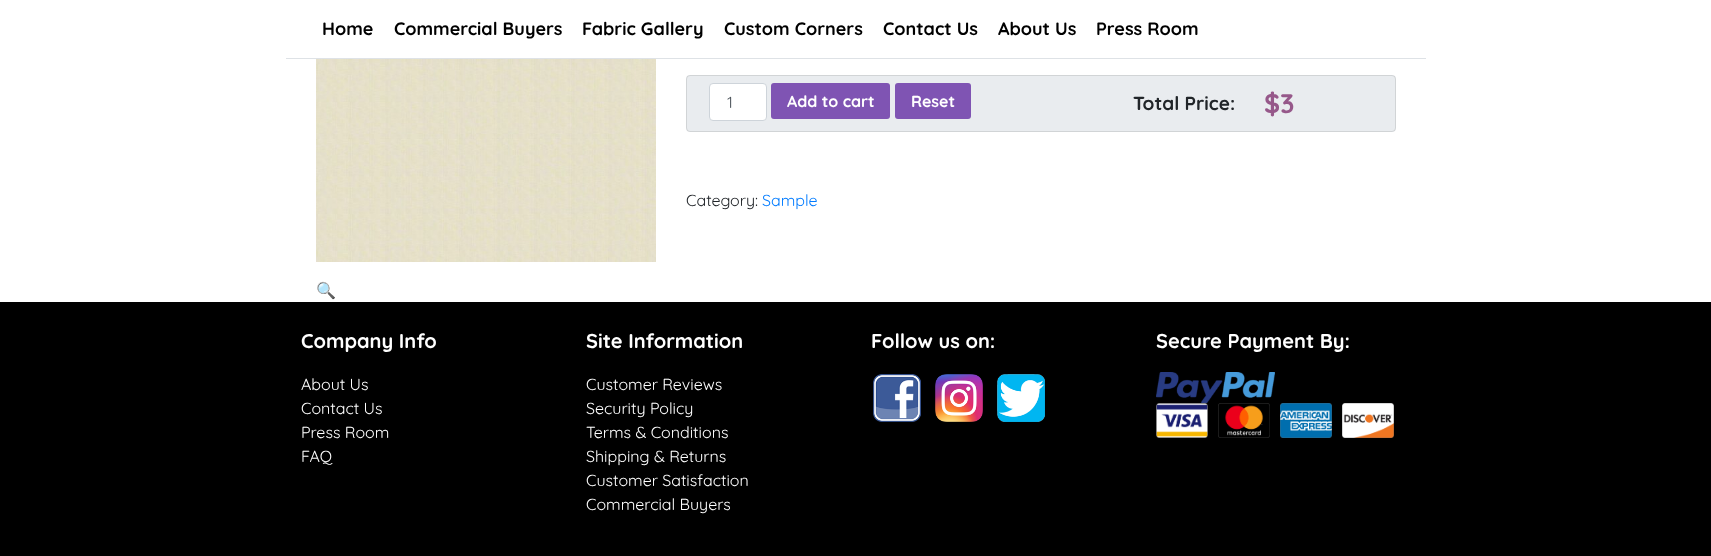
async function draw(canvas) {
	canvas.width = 1711;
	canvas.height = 556;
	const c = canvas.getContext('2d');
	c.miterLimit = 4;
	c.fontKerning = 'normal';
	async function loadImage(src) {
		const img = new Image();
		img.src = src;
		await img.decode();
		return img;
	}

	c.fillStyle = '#fff';
	c.fillRect(0, 0, 1711, 556);
	c.fillStyle = '#dee2e6';
	c.fillRect(286, 58, 1140, 1);
	c.font = 'bold 18px Quicksand';
	c.fillStyle = '#000';
	for (const [text, x, y] of [
		['Home', 322, 35],
		['Commercial Buyers', 394, 35],
		['Fabric Gallery', 582, 35],
		['Custom Corners', 724, 35],
		['Contact Us', 883, 35],
		['About Us', 998, 35],
		['Press Room', 1096, 35],
	]) {
		c.fillText(text, x, y);
	}
	c.fillStyle = '#e9ecef';
	c.beginPath();
	c.roundRect(686, 75, 710, 57, 4);
	c.fill();
	c.beginPath();
	c.roundRect(686.5, 75.5, 709, 56, 3.5);
	c.strokeStyle = '#0000001a';
	c.stroke();
	c.fillStyle = '#fff';
	c.beginPath();
	c.roundRect(709.5, 83.5, 57, 37, 3.5);
	c.fill();
	c.strokeStyle = '#ced4da';
	c.stroke();
	c.font = '16px Quicksand';
	c.fillStyle = '#495057';
	c.fillText('1', 727, 108);
	c.fillStyle = '#7f54b3';
	c.beginPath();
	c.roundRect(771, 83, 119, 36, 3);
	c.fill();
	c.font = 'bold 16px Quicksand';
	c.fillStyle = '#fff';
	c.fillText('Add to cart', 787, 107);
	c.fillStyle = '#7f54b3';
	c.beginPath();
	c.roundRect(895, 83, 76, 36, 3);
	c.fill();
	c.fillStyle = '#fff';
	c.fillText('Reset', 911, 107);
	c.font = 'bold 19px Quicksand';
	c.fillStyle = '#212529';
	c.fillText('Total Price:', 1133, 110);
	c.font = 'bold 27px Quicksand';
	c.fillStyle = '#96588a';
	c.fillText('$3', 1264, 113);
	c.font = '16px Quicksand';
	c.fillStyle = '#212529';
	c.fillText('Category:', 686, 206);
	c.fillStyle = '#007bff';
	c.fillText('Sample', 762, 206);
	c.drawImage(await loadImage('img1.png'), 316, 59, 340, 203);
	c.font = '16px Noto Color Emoji';
	c.fillText('🔍', 316, 296);
	c.fillStyle = '#000';
	c.fillRect(0, 302, 1711, 254);
	c.font = 'bold 20px Quicksand';
	c.fillStyle = '#fff';
	c.fillText('Company Info', 301, 348);
	c.font = '16px Quicksand';
	for (const [text, x, y] of [
		['About Us', 301, 390],
		['Contact Us', 301, 414],
		['Press Room', 301, 438],
		['FAQ', 301, 462],
	]) {
		c.fillText(text, x, y);
	}
	c.font = 'bold 20px Quicksand';
	c.fillText('Site Information', 586, 348);
	c.font = '16px Quicksand';
	for (const [text, x, y] of [
		['Customer Reviews', 586, 390],
		['Security Policy', 586, 414],
		['Terms & Conditions', 586, 438],
		['Shipping & Returns', 586, 462],
		['Customer Satisfaction', 586, 486],
		['Commercial Buyers', 586, 510],
	]) {
		c.fillText(text, x, y);
	}
	c.font = 'bold 20px Quicksand';
	c.fillText('Follow us on:', 871, 348);
	c.drawImage(await loadImage('img2.png'), 873, 374, 48, 48);
	c.drawImage(await loadImage('img3.png'), 935, 374, 48, 48);
	c.drawImage(await loadImage('img4.png'), 997, 374, 48, 48);
	c.fillText('Secure Payment By:', 1156, 348);
	c.drawImage(await loadImage('img5.png'), 1156, 372, 119, 31);
	c.drawImage(await loadImage('img6.png'), 1156, 403, 52, 35);
	c.drawImage(await loadImage('img7.png'), 1218, 403, 52, 35);
	c.drawImage(await loadImage('img8.png'), 1280, 403, 52, 35);
	c.drawImage(await loadImage('img9.png'), 1342, 403, 52, 35);
}

draw(document.querySelector('canvas'));
